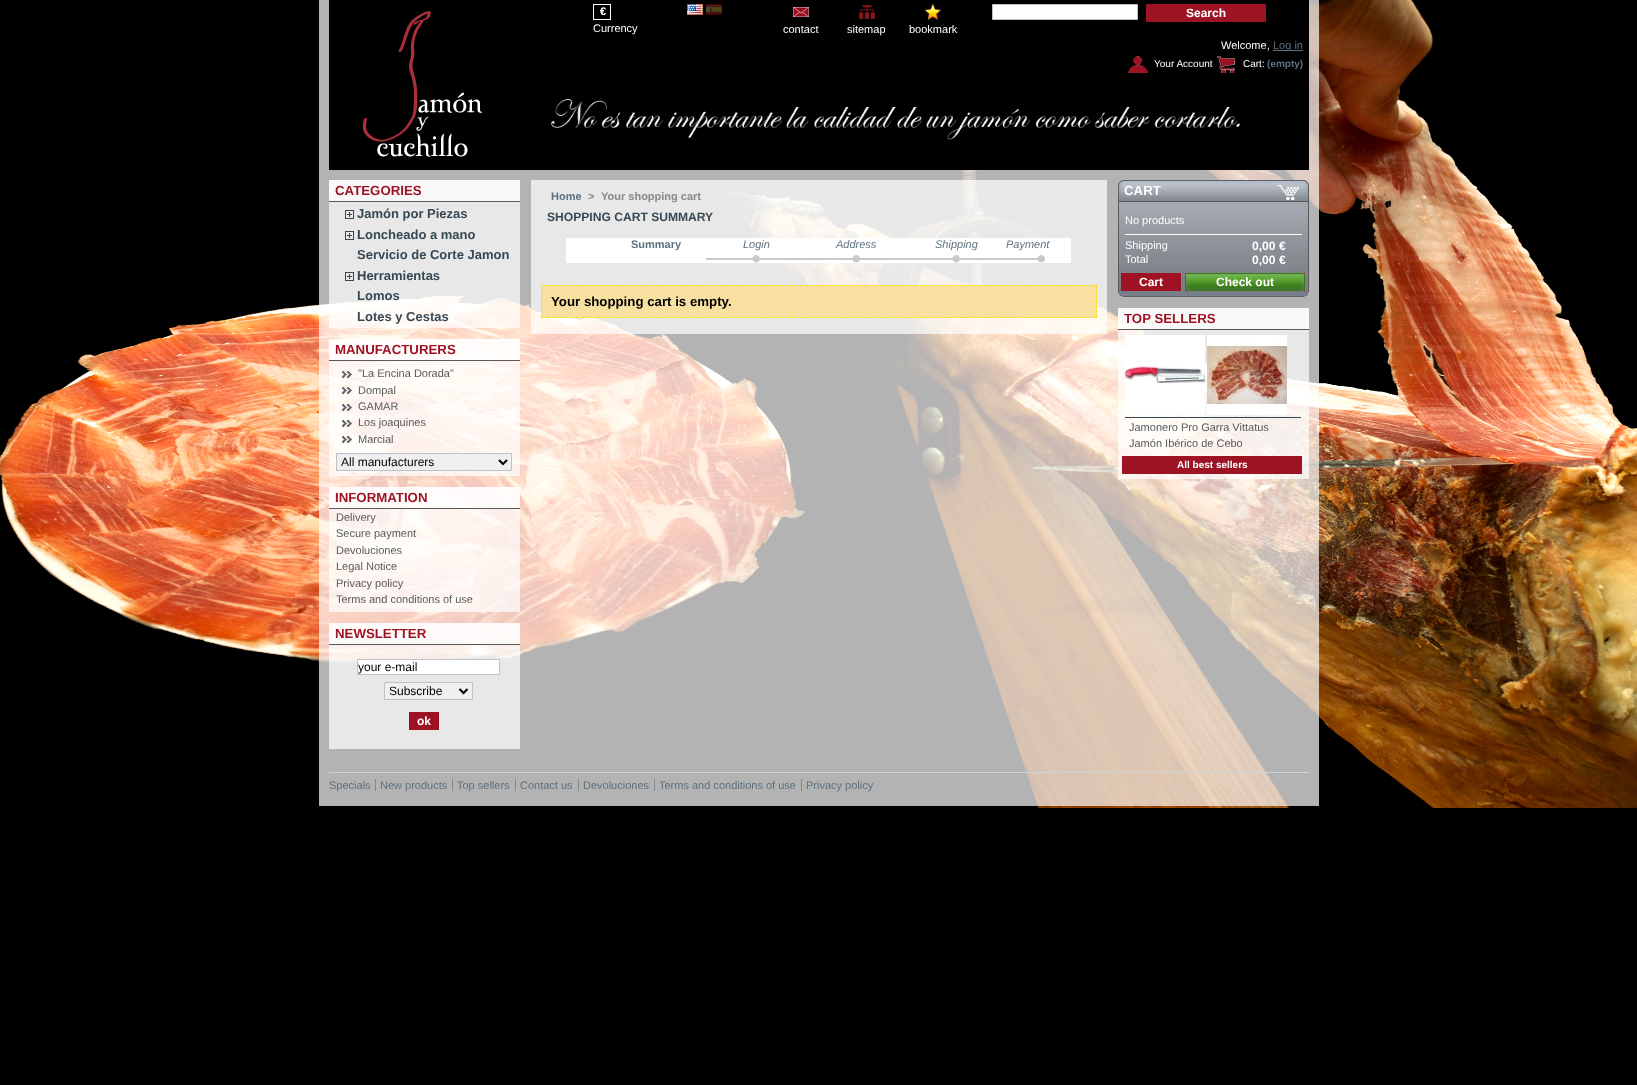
async function draw(canvas) {
	canvas.width = 1637;
	canvas.height = 1085;
	const c = canvas.getContext('2d');
	c.miterLimit = 4;
	c.fontKerning = 'normal';
	async function loadImage(src) {
		const img = new Image();
		img.src = src;
		await img.decode();
		return img;
	}

	c.fillStyle = '#000';
	c.fillRect(0, 0, 1637, 1085);
	c.drawImage(await loadImage('img1.png'), 0, 0, 1637, 808);
	c.fillStyle = '#ffffffb3';
	c.fillRect(319, 0, 1000, 806);
	c.fillStyle = '#000';
	c.fillRect(329, 0, 980, 170);
	c.drawImage(await loadImage('img2.png'), 362, 11, 120, 146);
	c.strokeStyle = '#fff';
	c.strokeRect(593.5, 4.5, 17, 15);
	c.font = 'bold 11px Liberation Sans';
	c.fillStyle = '#fff';
	c.fillText('€', 600, 15);
	c.font = '11px Liberation Sans';
	c.fillText('Currency', 593, 32);
	c.drawImage(await loadImage('img3.png'), 687, 4, 16, 11);
	c.drawImage(await loadImage('img4.png'), 706, 4, 16, 11);
	c.beginPath();
	c.rect(992.5, 4.5, 145, 15);
	c.fill();
	c.strokeStyle = '#bdc2c9';
	c.stroke();
	c.fillStyle = '#9e1323';
	c.fillRect(1146, 4, 120, 18);
	c.font = 'bold 12px Liberation Sans';
	c.fillStyle = '#fff';
	c.fillText('Search', 1186, 17);
	c.drawImage(await loadImage('img5.png'), 793, 7, 16, 10);
	c.font = '11px Liberation Sans';
	c.fillText('contact', 783, 33);
	c.drawImage(await loadImage('img6.png'), 859, 5, 16, 14);
	c.fillText('sitemap', 847, 33);
	c.drawImage(await loadImage('img7.png'), 925, 4, 16, 16);
	c.fillText('bookmark', 909, 33);
	c.fillText('Welcome,', 1221, 49);
	c.fillStyle = '#5d717e';
	c.fillRect(1273, 50, 30, 1);
	c.fillText('Log in', 1273, 49);
	c.drawImage(await loadImage('img8.png'), 1128, 56, 20, 17);
	c.font = '10px Liberation Sans';
	c.fillStyle = '#fff';
	c.fillText('Your Account', 1154, 67);
	c.drawImage(await loadImage('img9.png'), 1217, 56, 18, 17);
	c.fillText('Cart:', 1243, 67);
	c.font = 'bold 10px Liberation Sans';
	c.fillStyle = '#5d717e';
	c.fillText('(empty)', 1267, 67);
	c.drawImage(await loadImage('img10.png'), 551, 99, 690, 41);
	for (const [x, y, w, h, color] of [
		[329, 202, 191, 126, '#ffffffb3'],
		[329, 180, 191, 21, '#f8f8f8'],
		[329, 201, 191, 1, '#595a5e'],
	]) {
		c.fillStyle = color;
		c.fillRect(x, y, w, h);
	}
	c.font = 'bold 13.25px Liberation Sans';
	c.fillStyle = '#9e1323';
	c.fillText('CATEGORIES', 335, 195);
	c.drawImage(await loadImage('img11.png'), 345, 210, 9, 9);
	c.font = 'bold 13px Liberation Sans';
	c.fillStyle = '#374853';
	c.fillText('Jamón por Piezas', 357, 218);
	c.drawImage(await loadImage('img11.png'), 345, 231, 9, 9);
	c.fillText('Loncheado a mano', 357, 239);
	c.fillText('Servicio de Corte Jamon', 357, 259);
	c.drawImage(await loadImage('img11.png'), 345, 272, 9, 9);
	for (const [text, x, y] of [
		['Herramientas', 357, 280],
		['Lomos', 357, 300],
		['Lotes y Cestas', 357, 321],
	]) {
		c.fillText(text, x, y);
	}
	for (const [x, y, w, h, color] of [
		[329, 339, 191, 137, '#ffffffb3'],
		[329, 339, 191, 21, '#ffffffb3'],
		[329, 360, 191, 1, '#595a5e'],
	]) {
		c.fillStyle = color;
		c.fillRect(x, y, w, h);
	}
	c.font = 'bold 13.25px Liberation Sans';
	c.fillStyle = '#9e1323';
	c.fillText('MANUFACTURERS', 335, 354);
	c.drawImage(await loadImage('img12.png'), 342, 371, 10, 7);
	c.font = '11px Liberation Sans';
	c.fillStyle = '#595a5e';
	c.fillText('"La Encina Dorada"', 358, 377);
	c.drawImage(await loadImage('img12.png'), 342, 387, 10, 7);
	c.fillText('Dompal', 358, 394);
	c.drawImage(await loadImage('img12.png'), 342, 404, 10, 7);
	c.fillText('GAMAR', 358, 410);
	c.drawImage(await loadImage('img12.png'), 342, 420, 10, 7);
	c.fillText('Los joaquines', 358, 426);
	c.drawImage(await loadImage('img12.png'), 342, 436, 10, 7);
	c.fillText('Marcial', 358, 443);
	c.fillStyle = '#efefef';
	c.beginPath();
	c.rect(336.5, 453.5, 175, 17);
	c.fill();
	c.stroke();
	c.beginPath();
	c.moveTo(499, 460);
	c.lineTo(503, 464);
	c.lineTo(507, 460);
	c.strokeStyle = '#000';
	c.lineWidth = 2;
	c.stroke();
	c.font = '12px Liberation Sans';
	c.fillStyle = '#000';
	c.fillText('All manufacturers', 341, 466);
	for (const [x, y, w, h, color] of [
		[329, 487, 191, 125, '#ffffffb3'],
		[329, 487, 191, 21, '#ffffffb3'],
		[329, 508, 191, 1, '#595a5e'],
	]) {
		c.fillStyle = color;
		c.fillRect(x, y, w, h);
	}
	c.font = 'bold 13.25px Liberation Sans';
	c.fillStyle = '#9e1323';
	c.fillText('INFORMATION', 335, 502);
	c.font = '11px Liberation Sans';
	c.fillStyle = '#595a5e';
	for (const [text, x, y] of [
		['Delivery', 336, 521],
		['Secure payment', 336, 537],
		['Devoluciones', 336, 554],
		['Legal Notice', 336, 570],
		['Privacy policy', 336, 587],
		['Terms and conditions of use', 336, 603],
	]) {
		c.fillText(text, x, y);
	}
	for (const [x, y, w, h, color] of [
		[329, 623, 191, 126, '#ffffffb3'],
		[329, 623, 191, 21, '#ffffffb3'],
		[329, 644, 191, 1, '#595a5e'],
	]) {
		c.fillStyle = color;
		c.fillRect(x, y, w, h);
	}
	c.font = 'bold 13.25px Liberation Sans';
	c.fillStyle = '#9e1323';
	c.fillText('NEWSLETTER', 335, 638);
	c.fillStyle = '#fff';
	c.beginPath();
	c.rect(357.5, 659.5, 142, 15);
	c.fill();
	c.strokeStyle = '#bdc2c9';
	c.lineWidth = 1;
	c.stroke();
	c.font = '12px Liberation Sans';
	c.fillStyle = '#000';
	c.fillText('your e-mail', 358, 671);
	c.fillStyle = '#efefef';
	c.beginPath();
	c.rect(384.5, 682.5, 88, 17);
	c.fill();
	c.stroke();
	c.beginPath();
	c.moveTo(459.5, 689);
	c.lineTo(463.5, 693);
	c.lineTo(467.5, 689);
	c.strokeStyle = '#000';
	c.lineWidth = 2;
	c.stroke();
	c.fillStyle = '#000';
	c.fillText('Subscribe', 389, 695);
	c.fillStyle = '#9e1323';
	c.fillRect(409, 712, 30, 18);
	c.font = 'bold 12px Liberation Sans';
	c.fillStyle = '#fff';
	c.fillText('ok', 417, 725);
	c.fillStyle = '#ffffffb3';
	c.fillRect(531, 180, 576, 154);
	c.font = 'bold 11px Liberation Sans';
	c.fillStyle = '#5d717e';
	c.fillText('Home', 551, 200);
	c.fillStyle = '#888';
	c.fillText('>', 588, 200);
	c.fillText('Your shopping cart', 601, 200);
	c.font = 'bold 12.1px Liberation Sans';
	c.fillStyle = '#374853';
	c.fillText('SHOPPING CART SUMMARY', 547, 221);
	c.fillStyle = '#fff';
	c.fillRect(566, 238, 505, 25);
	c.font = 'bold 11px Liberation Sans';
	c.fillStyle = '#5d717e';
	c.fillText('Summary', 631, 248);
	c.drawImage(await loadImage('img13.png'), 706, 255, 100, 8);
	c.font = 'italic 11px Liberation Sans';
	c.fillText('Login', 743, 248);
	c.drawImage(await loadImage('img13.png'), 806, 255, 100, 8);
	c.fillText('Address', 836, 248);
	c.drawImage(await loadImage('img13.png'), 906, 255, 100, 8);
	c.fillText('Shipping', 935, 248);
	c.drawImage(await loadImage('img14.png'), 1006, 255, 39, 8);
	c.fillText('Payment', 1006, 248);
	c.fillStyle = '#f8e1a0';
	c.fillRect(541, 285, 556, 33);
	c.beginPath();
	c.moveTo(541, 285.5);
	c.lineTo(1097, 285.5);
	c.strokeStyle = '#f9e400';
	c.lineWidth = 1;
	c.setLineDash([3, 1.98]);
	c.stroke();
	c.beginPath();
	c.moveTo(1096.5, 285);
	c.lineTo(1096.5, 318);
	c.setLineDash([3, 2]);
	c.stroke();
	c.beginPath();
	c.moveTo(541, 317.5);
	c.lineTo(1097, 317.5);
	c.setLineDash([3, 1.98]);
	c.stroke();
	c.beginPath();
	c.moveTo(541.5, 285);
	c.lineTo(541.5, 318);
	c.setLineDash([3, 2]);
	c.stroke();
	c.font = 'bold 13.25px Liberation Sans';
	c.fillStyle = '#000';
	c.fillText('Your shopping cart is empty.', 551, 306);
	c.drawImage(await loadImage('img15.png'), 1118, 292, 191, 5);
	c.drawImage(await loadImage('img16.png'), 1118, 180, 191, 21);
	c.fillStyle = '#595a5e';
	c.fillRect(1118, 201, 191, 1);
	c.fillStyle = '#fff';
	c.fillText('CART', 1124, 195);
	c.drawImage(await loadImage('img17.png'), 1119, 202, 189, 90);
	c.fillStyle = '#595a5e';
	c.fillRect(1308, 202, 1, 90);
	c.fillRect(1118, 202, 1, 90);
	c.font = '11px Liberation Sans';
	c.fillStyle = '#fff';
	c.fillText('No products', 1125, 224);
	c.fillRect(1125, 234, 177, 1);
	c.fillText('Shipping', 1125, 249);
	c.font = 'bold 12.1px Liberation Sans';
	c.fillText('0,00 €', 1252, 250);
	c.font = '11px Liberation Sans';
	c.fillText('Total', 1125, 263);
	c.font = 'bold 12.1px Liberation Sans';
	c.fillText('0,00 €', 1252, 264);
	c.fillStyle = '#9e1323';
	c.fillRect(1121, 273, 60, 18);
	c.font = 'bold 12px Liberation Sans';
	c.fillStyle = '#fff';
	c.fillText('Cart', 1139, 286);
	c.fillStyle = '#9e1323';
	c.fillRect(1185, 273, 120, 18);
	c.drawImage(await loadImage('img18.png'), 1185, 273, 120, 18);
	c.fillStyle = '#fff';
	c.fillText('Check out', 1216, 286);
	for (const [x, y, w, h, color] of [
		[1118, 308, 191, 171, '#ffffffb3'],
		[1118, 308, 191, 21, '#ffffffb3'],
		[1118, 329, 191, 1, '#595a5e'],
	]) {
		c.fillStyle = color;
		c.fillRect(x, y, w, h);
	}
	c.font = 'bold 13.25px Liberation Sans';
	c.fillStyle = '#9e1323';
	c.fillText('TOP SELLERS', 1124, 323);
	c.drawImage(await loadImage('img19.png'), 1125, 335, 80, 80);
	c.drawImage(await loadImage('img20.png'), 1207, 335, 80, 80);
	c.fillStyle = '#374853';
	c.fillRect(1125, 417, 176, 1);
	c.font = '11px Liberation Sans';
	c.fillStyle = '#595a5e';
	c.fillText('Jamonero Pro Garra Vittatus', 1129, 431);
	c.fillText('Jamón Ibérico de Cebo', 1129, 447);
	c.fillStyle = '#9e1323';
	c.fillRect(1122, 456, 180, 18);
	c.font = 'bold 10px Liberation Sans';
	c.fillStyle = '#fff';
	c.fillText('All best sellers', 1177, 468);
	c.fillStyle = '#d0d3d8';
	c.fillRect(329, 772, 980, 1);
	c.font = '11px Liberation Sans';
	c.fillStyle = '#5d717e';
	c.fillText('Specials', 329, 789);
	c.fillText('New products', 380, 789);
	c.fillStyle = '#888';
	c.fillRect(375, 779, 1, 12);
	c.fillStyle = '#5d717e';
	c.fillText('Top sellers', 457, 789);
	c.fillStyle = '#888';
	c.fillRect(452, 779, 1, 12);
	c.fillStyle = '#5d717e';
	c.fillText('Contact us', 520, 789);
	c.fillStyle = '#888';
	c.fillRect(515, 779, 1, 12);
	c.fillStyle = '#5d717e';
	c.fillText('Devoluciones', 583, 789);
	c.fillStyle = '#888';
	c.fillRect(578, 779, 1, 12);
	c.fillStyle = '#5d717e';
	c.fillText('Terms and conditions of use', 659, 789);
	c.fillStyle = '#888';
	c.fillRect(654, 779, 1, 12);
	c.fillStyle = '#5d717e';
	c.fillText('Privacy policy', 806, 789);
	c.fillStyle = '#888';
	c.fillRect(801, 779, 1, 12);
}

draw(document.querySelector('canvas'));
